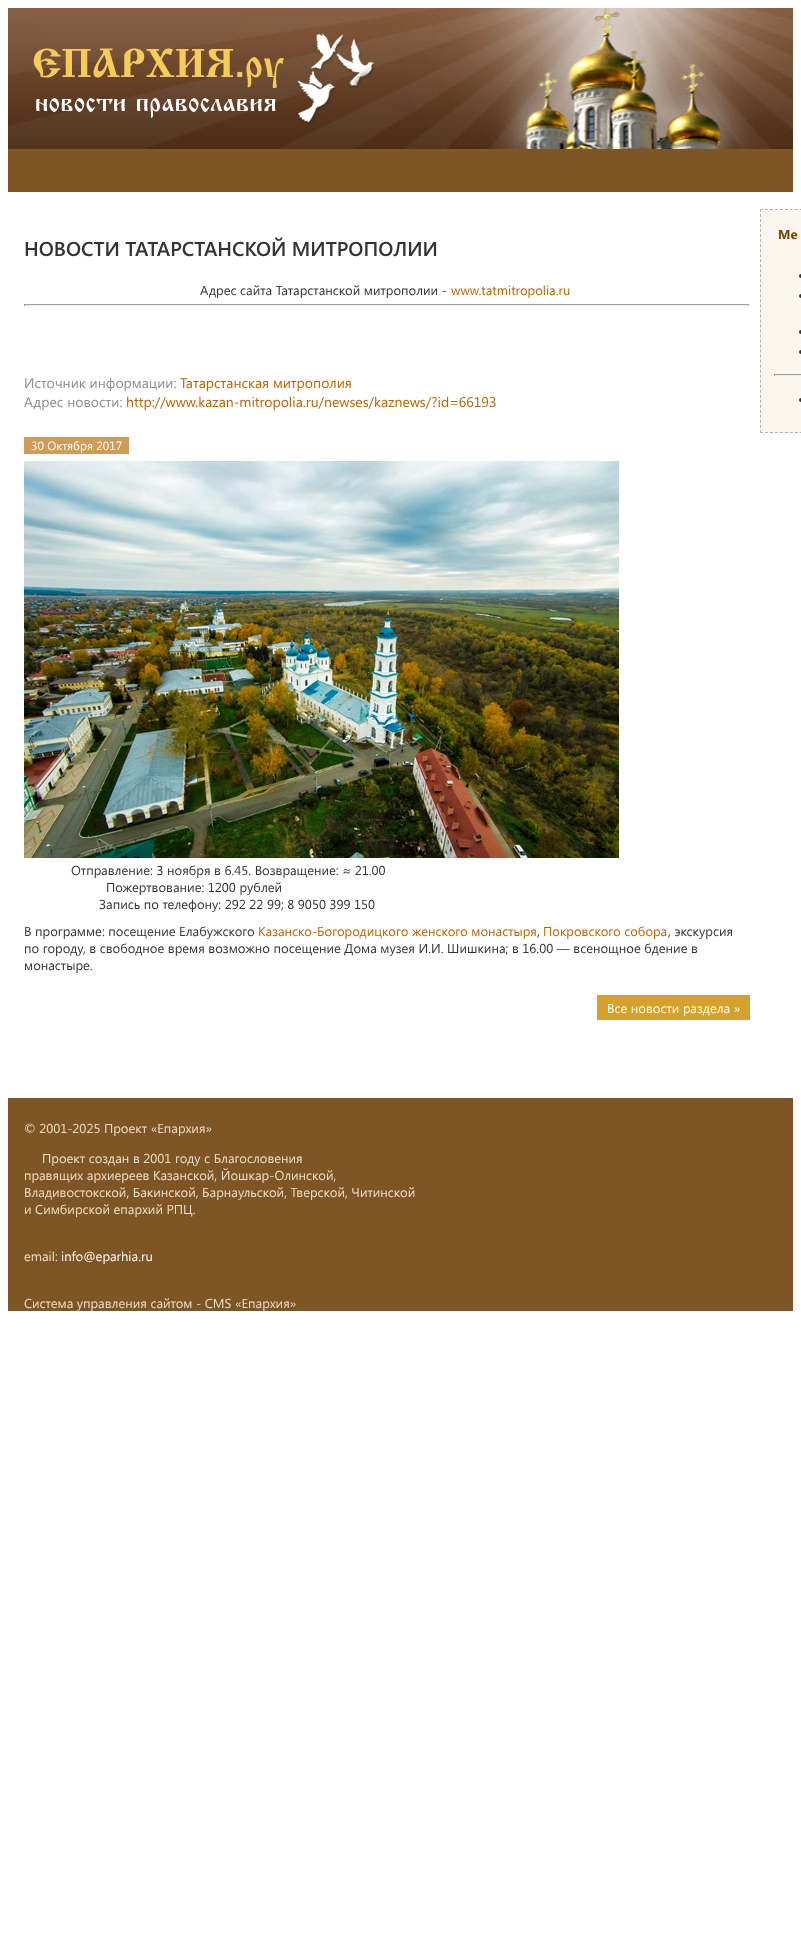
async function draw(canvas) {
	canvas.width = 801;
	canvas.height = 1940;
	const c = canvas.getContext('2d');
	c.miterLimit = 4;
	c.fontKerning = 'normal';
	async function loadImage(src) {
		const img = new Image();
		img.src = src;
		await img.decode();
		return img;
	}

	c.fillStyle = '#fff';
	c.fillRect(0, 0, 801, 1940);
	c.drawImage(await loadImage('img1.png'), 8, 8, 785, 141);
	c.drawImage(await loadImage('img2.png'), 33, 33, 342, 92);
	c.fillStyle = '#7e5524';
	c.fillRect(8, 149, 785, 43);
	c.fillStyle = '#fcf7ee';
	c.fillRect(760, 209, 41, 224);
	c.beginPath();
	c.moveTo(760, 209.5);
	c.lineTo(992, 209.5);
	c.strokeStyle = '#b2b2b2';
	c.setLineDash([3, 1.98]);
	c.stroke();
	c.beginPath();
	c.moveTo(760, 432.5);
	c.lineTo(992, 432.5);
	c.stroke();
	c.beginPath();
	c.moveTo(760.5, 209);
	c.lineTo(760.5, 433);
	c.setLineDash([3, 2.02]);
	c.stroke();
	c.font = 'bold 13px Segoe UI';
	c.fillStyle = '#7b4504';
	c.fillText('Ме', 778, 239);
	c.fillStyle = '#333';
	c.beginPath();
	c.arc(801, 276, 2, 0, 2 * Math.PI);
	c.fill();
	c.beginPath();
	c.arc(801, 296, 2, 0, 2 * Math.PI);
	c.fill();
	c.beginPath();
	c.arc(801, 332, 2, 0, 2 * Math.PI);
	c.fill();
	c.beginPath();
	c.arc(801, 352, 2, 0, 2 * Math.PI);
	c.fill();
	for (const [x, y, w, h, color] of [
		[774, 374, 27, 1, '#9f9f9f'],
		[774, 375, 27, 1, '#eee'],
		[774, 374, 1, 2, '#9f9f9f'],
	]) {
		c.fillStyle = color;
		c.fillRect(x, y, w, h);
	}
	c.fillStyle = '#333';
	c.beginPath();
	c.arc(801, 400, 2, 0, 2 * Math.PI);
	c.fill();
	c.font = '600 20px Segoe UI';
	c.fillText('НОВОСТИ ТАТАРСТАНСКОЙ МИТРОПОЛИИ', 24, 256);
	c.font = '13px Segoe UI';
	c.fillText('Адрес сайта Татарстанской митрополии -', 200, 295);
	c.fillStyle = '#b96600';
	c.fillText('www.tatmitropolia.ru', 451, 295);
	for (const [x, y, w, h, color] of [
		[24, 304, 726, 1, '#9f9f9f'],
		[749, 304, 1, 2, '#eee'],
		[24, 305, 726, 1, '#eee'],
		[24, 304, 1, 2, '#9f9f9f'],
	]) {
		c.fillStyle = color;
		c.fillRect(x, y, w, h);
	}
	c.font = '14px Segoe UI';
	c.fillStyle = '#8e8e8e';
	c.fillText('Источник информации:', 24, 388);
	c.fillStyle = '#b96600';
	c.fillText('Татарстанская митрополия', 180, 388);
	c.fillStyle = '#8e8e8e';
	c.fillText('Адрес новости:', 24, 407);
	c.fillStyle = '#b96600';
	c.fillText('http://www.kazan-mitropolia.ru/newses/kaznews/?id=66193', 126, 407);
	c.fillStyle = '#cf9b5b';
	c.fillRect(24, 437, 105, 17);
	c.font = '12px Segoe UI';
	c.fillStyle = '#fff';
	c.fillText('30 Октября 2017', 31, 450);
	c.drawImage(await loadImage('img3.png'), 24, 461, 595, 397);
	c.font = '13px Segoe UI';
	c.fillStyle = '#333';
	for (const [text, x, y] of [
		['Отправление: 3 ноября в 6.45. Возвращение: ≈ 21.00', 71, 875],
		['Пожертвование: 1200 рублей', 106, 892],
		['Запись по телефону: 292 22 99; 8 9050 399 150', 99, 909],
		['В программе: посещение Елабужского', 24, 936],
	]) {
		c.fillText(text, x, y);
	}
	c.fillStyle = '#b96600';
	c.fillText('Казанско-Богородицкого женского монастыря', 258, 936);
	c.fillStyle = '#333';
	c.fillText(',', 537, 936);
	c.fillStyle = '#b96600';
	c.fillText('Покровского собора', 543, 936);
	c.fillStyle = '#333';
	for (const [text, x, y] of [
		[', экскурсия', 668, 936],
		['по городу, в свободное время возможно посещение Дома музея И.И. Шишкина; в 16.00 — всенощное бдение в', 24, 953],
		['монастыре.', 24, 970],
	]) {
		c.fillText(text, x, y);
	}
	c.fillStyle = '#d5a12b';
	c.fillRect(597, 995, 153, 25);
	c.fillStyle = '#fff';
	c.fillText('Все новости раздела »', 607, 1013);
	c.fillStyle = '#7e5524';
	c.fillRect(8, 1098, 785, 213);
	c.fillStyle = '#ebdec4';
	for (const [text, x, y] of [
		['© 2001-2025 Проект «Епархия»', 24, 1133],
		['Проект создан в 2001 году с Благословения', 42, 1163],
		['правящих архиереев Казанской, Йошкар-Олинской,', 24, 1180],
		['Владивостокской, Бакинской, Барнаульской, Тверской, Читинской', 24, 1197],
		['и Симбирской епархий РПЦ.', 24, 1214],
		['email:', 24, 1261],
	]) {
		c.fillText(text, x, y);
	}
	c.fillStyle = '#fff';
	c.fillText('info@eparhia.ru', 61, 1261);
	c.fillStyle = '#ebdec4';
	c.fillText('Система управления сайтом - CMS «Епархия»', 24, 1308);
}

draw(document.querySelector('canvas'));
